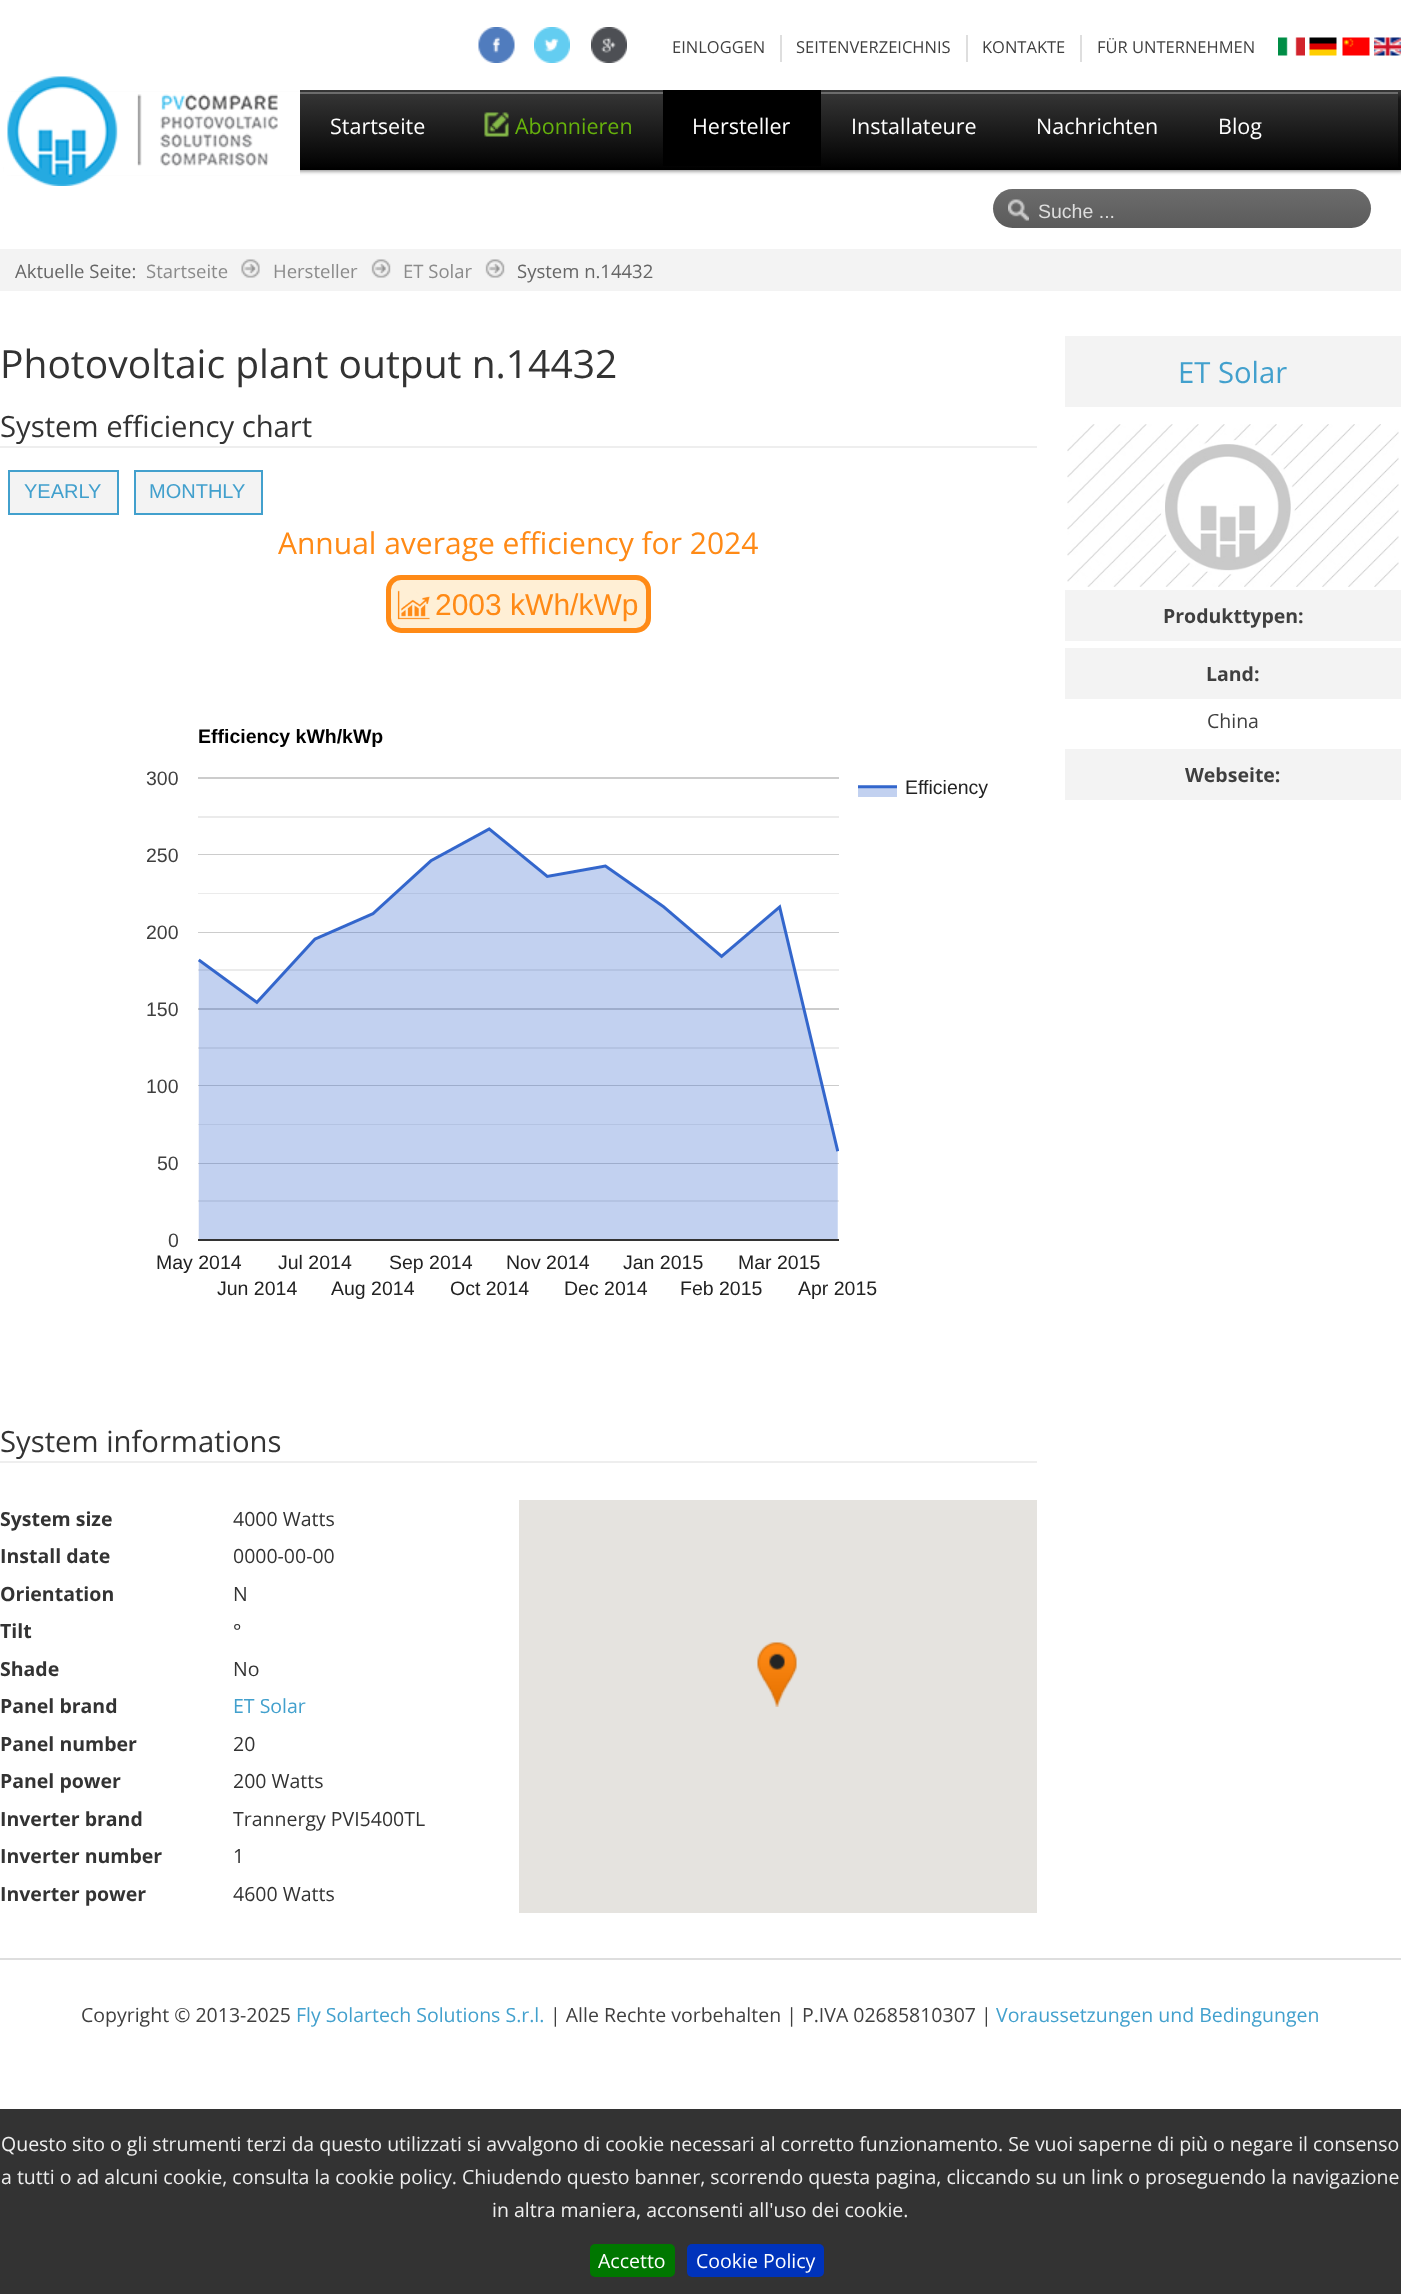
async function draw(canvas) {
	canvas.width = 1401;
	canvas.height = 2294;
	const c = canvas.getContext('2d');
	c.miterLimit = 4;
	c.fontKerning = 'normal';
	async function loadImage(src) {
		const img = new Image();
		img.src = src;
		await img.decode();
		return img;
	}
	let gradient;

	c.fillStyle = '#fff';
	c.fillRect(0, 0, 1401, 2294);
	c.drawImage(await loadImage('img1.png'), 478, 27, 37, 36);
	c.drawImage(await loadImage('img2.png'), 534, 27, 36, 36);
	c.drawImage(await loadImage('img3.png'), 591, 27, 36, 36);
	c.fillStyle = '#dedede';
	c.fillRect(780, 35, 2, 27);
	c.font = '16.5px Open Sans';
	c.fillStyle = '#3f3f3f';
	c.fillText('EINLOGGEN', 672, 53);
	c.fillStyle = '#dedede';
	c.fillRect(966, 35, 2, 27);
	c.fillStyle = '#3f3f3f';
	c.fillText('SEITENVERZEICHNIS', 796, 53);
	c.fillStyle = '#dedede';
	c.fillRect(1080, 35, 2, 27);
	c.fillStyle = '#3f3f3f';
	c.fillText('KONTAKTE', 982, 53);
	c.fillText('FÜR UNTERNEHMEN', 1097, 53);
	c.drawImage(await loadImage('img4.png'), 1278, 37, 27, 19);
	c.drawImage(await loadImage('img5.png'), 1309, 37, 28, 19);
	c.drawImage(await loadImage('img6.png'), 1342, 37, 28, 19);
	c.drawImage(await loadImage('img7.png'), 1374, 37, 27, 19);
	gradient = c.createLinearGradient(701, 90, 701, 170);
	gradient.addColorStop(0, '#373737');
	gradient.addColorStop(1, '#000');
	c.fillStyle = gradient;
	c.fillRect(300, 90, 1101, 80);
	c.save();
	c.beginPath();
	c.moveTo(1, 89);
	c.lineTo(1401, 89);
	c.lineTo(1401, 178);
	c.lineTo(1, 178);
	c.closePath();
	c.moveTo(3, 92);
	c.lineTo(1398, 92);
	c.lineTo(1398, 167);
	c.lineTo(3, 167);
	c.closePath();
	c.clip('evenodd');
	c.fillStyle = '#00000080';
	c.filter = 'blur(2px)';
	c.beginPath();
	c.rect(8, 96, 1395, 75);
	c.fill();
	c.filter = 'none';
	c.restore();
	c.fillStyle = '#fff';
	c.fillRect(4, 166, 296, 9);
	c.drawImage(await loadImage('img8.png'), 7, 76, 271, 110);
	c.fillStyle = '#6c6c6c';
	c.fillRect(300, 92, 1098, 2);
	c.font = '21.5px Open Sans';
	c.fillStyle = '#fff';
	c.fillText('Startseite', 330, 134);
	c.drawImage(await loadImage('img9.png'), 484, 112, 25, 25);
	c.fillStyle = '#66b10c';
	c.fillText('Abonnieren', 515, 134);
	c.fillStyle = '#000';
	c.fillRect(663, 90, 158, 76);
	c.fillStyle = '#fff';
	for (const [text, x, y] of [
		['Hersteller', 692, 134],
		['Installateure', 851, 134],
		['Nachrichten', 1036, 134],
		['Blog', 1218, 134],
	]) {
		c.fillText(text, x, y);
	}
	gradient = c.createLinearGradient(1182, 189, 1182, 228);
	gradient.addColorStop(0, '#6c6c6c');
	gradient.addColorStop(1, '#5b5b5b');
	c.fillStyle = gradient;
	c.beginPath();
	c.roundRect(993, 189, 378, 39, 19.5);
	c.fill();
	c.drawImage(await loadImage('img10.png'), 1008, 199, 21, 22);
	c.font = '19.5px Liberation Sans';
	c.fillStyle = '#dedede';
	c.fillText('Suche ...', 1038, 218);
	c.fillStyle = '#f3f3f3';
	c.fillRect(0, 249, 1401, 42);
	c.font = '18.5px Open Sans';
	c.fillStyle = '#666';
	c.fillText('Aktuelle Seite:', 15, 278);
	c.fillStyle = '#8b8b8b';
	c.fillText('Startseite', 146, 278);
	c.drawImage(await loadImage('img11.png'), 241, 259, 19, 19);
	c.fillText('Hersteller', 273, 278);
	c.drawImage(await loadImage('img12.png'), 371, 259, 20, 19);
	c.fillText('ET Solar', 403, 278);
	c.drawImage(await loadImage('img13.png'), 485, 259, 20, 19);
	c.fillStyle = '#666';
	c.fillText('System n.14432', 517, 278);
	c.font = '39px Open Sans';
	c.fillStyle = '#333';
	c.fillText('Photovoltaic plant output n.14432', 0, 378);
	c.fillStyle = '#eee';
	c.fillRect(0, 446, 1037, 2);
	c.font = '29.25px Open Sans';
	c.fillStyle = '#333';
	c.fillText('System efficiency chart', 0, 437);
	c.fillStyle = '#f3f3f3';
	c.beginPath();
	c.rect(9, 471, 109, 43);
	c.fill();
	c.strokeStyle = '#42a0cd';
	c.lineWidth = 2;
	c.stroke();
	c.font = '20px Liberation Sans';
	c.fillStyle = '#42a0cd';
	c.fillText('YEARLY', 24, 498);
	c.fillStyle = '#f3f3f3';
	c.beginPath();
	c.rect(135, 471, 127, 43);
	c.fill();
	c.stroke();
	c.fillStyle = '#42a0cd';
	c.fillText('MONTHLY', 149, 498);
	c.font = '30px Open Sans';
	c.fillStyle = '#ff8a16';
	c.fillText('Annual average efficiency for 2024', 278, 554);
	c.fillStyle = '#ffefd5';
	c.beginPath();
	c.roundRect(386, 575, 265, 58, 15);
	c.fill();
	c.drawImage(await loadImage('img14.png'), 397, 590, 33, 30);
	c.beginPath();
	c.roundRect(388.5, 577.5, 260, 53, 12.5);
	c.strokeStyle = '#ff8a16';
	c.lineWidth = 5;
	c.stroke();
	c.font = '30px Liberation Sans';
	c.fillStyle = '#ff8a16';
	c.fillText('2003 kWh/kWp', 435, 615);
	c.font = 'bold 19.5px Liberation Sans';
	c.fillStyle = '#000';
	c.fillText('Efficiency kWh/kWp', 198, 743);
	c.font = '19.5px Liberation Sans';
	c.fillStyle = '#3f3f3f';
	c.fillText('300', 146, 785);
	c.drawImage(await loadImage('img15.png'), 198, 777, 699, 464);
	c.fillStyle = '#222';
	c.fillText('Efficiency', 905, 794);
	c.fillStyle = '#3f3f3f';
	for (const [text, x, y] of [
		['250', 146, 862],
		['200', 146, 939],
		['150', 146, 1016],
		['100', 146, 1093],
		['50', 157, 1170],
		['0', 168, 1247],
	]) {
		c.fillText(text, x, y);
	}
	c.fillStyle = '#222';
	for (const [text, x, y] of [
		['May 2014', 156, 1269],
		['Jul 2014', 278, 1269],
		['Sep 2014', 389, 1269],
		['Nov 2014', 506, 1269],
		['Jan 2015', 623, 1269],
		['Mar 2015', 738, 1269],
		['Jun 2014', 217, 1295],
		['Aug 2014', 331, 1295],
		['Oct 2014', 450, 1295],
		['Dec 2014', 564, 1295],
		['Feb 2015', 680, 1295],
		['Apr 2015', 798, 1295],
	]) {
		c.fillText(text, x, y);
	}
	c.fillStyle = '#eee';
	c.fillRect(0, 1461, 1037, 2);
	c.font = '29.25px Open Sans';
	c.fillStyle = '#333';
	c.fillText('System informations', 0, 1452);
	c.font = 'bold 19.5px Open Sans';
	c.fillText('System size', 0, 1526);
	c.font = '19.5px Open Sans';
	c.fillText('4000 Watts', 233, 1526);
	c.font = 'bold 19.5px Open Sans';
	c.fillText('Install date', 0, 1563);
	c.font = '19.5px Open Sans';
	c.fillText('0000-00-00', 233, 1563);
	c.font = 'bold 19.5px Open Sans';
	c.fillText('Orientation', 0, 1601);
	c.font = '19.5px Open Sans';
	c.fillText('N', 233, 1601);
	c.font = 'bold 19.5px Open Sans';
	c.fillText('Tilt', 0, 1638);
	c.font = '19.5px Open Sans';
	c.fillText('°', 233, 1638);
	c.font = 'bold 19.5px Open Sans';
	c.fillText('Shade', 0, 1676);
	c.font = '19.5px Open Sans';
	c.fillText('No', 233, 1676);
	c.font = 'bold 19.5px Open Sans';
	c.fillText('Panel brand', 0, 1713);
	c.font = '19.5px Open Sans';
	c.fillStyle = '#42a0cd';
	c.fillText('ET Solar', 233, 1713);
	c.font = 'bold 19.5px Open Sans';
	c.fillStyle = '#333';
	c.fillText('Panel number', 0, 1751);
	c.font = '19.5px Open Sans';
	c.fillText('20', 233, 1751);
	c.font = 'bold 19.5px Open Sans';
	c.fillText('Panel power', 0, 1788);
	c.font = '19.5px Open Sans';
	c.fillText('200 Watts', 233, 1788);
	c.font = 'bold 19.5px Open Sans';
	c.fillText('Inverter brand', 0, 1826);
	c.font = '19.5px Open Sans';
	c.fillText('Trannergy PVI5400TL', 233, 1826);
	c.font = 'bold 19.5px Open Sans';
	c.fillText('Inverter number', 0, 1863);
	c.font = '19.5px Open Sans';
	c.fillText('1', 233, 1863);
	c.font = 'bold 19.5px Open Sans';
	c.fillText('Inverter power', 0, 1901);
	c.font = '19.5px Open Sans';
	c.fillText('4600 Watts', 233, 1901);
	c.fillStyle = '#e5e3df';
	c.fillRect(519, 1500, 518, 413);
	c.drawImage(await loadImage('img16.png'), 757, 1642, 40, 65);
	c.fillStyle = '#f3f3f3';
	c.fillRect(1065, 336, 336, 71);
	c.font = '29.25px Open Sans';
	c.fillStyle = '#42a0cd';
	c.fillText('ET Solar', 1178, 383);
	c.drawImage(await loadImage('img17.png'), 1067, 424, 332, 163);
	c.fillStyle = '#f3f3f3';
	c.fillRect(1065, 590, 336, 51);
	c.font = 'bold 19.5px Open Sans';
	c.fillStyle = '#3f3f3f';
	c.fillText('Produkttypen:', 1163, 623);
	c.fillStyle = '#f3f3f3';
	c.fillRect(1065, 648, 336, 51);
	c.fillStyle = '#3f3f3f';
	c.fillText('Land:', 1206, 681);
	c.font = '19.5px Open Sans';
	c.fillText('China', 1207, 728);
	c.fillStyle = '#f3f3f3';
	c.fillRect(1065, 749, 336, 51);
	c.font = 'bold 19.5px Open Sans';
	c.fillStyle = '#3f3f3f';
	c.fillText('Webseite:', 1185, 782);
	c.fillStyle = '#dedede';
	c.fillRect(0, 1958, 1401, 2);
	c.font = '19.5px Open Sans';
	c.fillStyle = '#3f3f3f';
	c.fillText('Copyright © 2013-2025', 81, 2022);
	c.fillStyle = '#42a0cd';
	c.fillText('Fly Solartech Solutions S.r.l.', 296, 2022);
	c.fillStyle = '#3f3f3f';
	c.fillText('| Alle Rechte vorbehalten | P.IVA 02685810307 |', 550, 2022);
	c.fillStyle = '#42a0cd';
	c.fillText('Voraussetzungen und Bedingungen', 996, 2022);
	c.fillStyle = '#333';
	c.fillRect(0, 2109, 1401, 185);
	c.fillStyle = '#eee';
	for (const [text, x, y] of [
		['Questo sito o gli strumenti terzi da questo utilizzati si avvalgono di cookie necessari al corretto funzionamento. Se vuoi saperne di più o negare il consenso', 1, 2151],
		['a tutti o ad alcuni cookie, consulta la cookie policy. Chiudendo questo banner, scorrendo questa pagina, cliccando su un link o proseguendo la navigazione', 1, 2184],
		['in altra maniera, acconsenti all\'uso dei cookie.', 492, 2217],
	]) {
		c.fillText(text, x, y);
	}
	c.fillStyle = '#070';
	c.beginPath();
	c.roundRect(590, 2244, 85, 33, 5);
	c.fill();
	c.fillStyle = '#fff';
	c.fillText('Accetto', 598, 2268);
	c.fillStyle = '#03b';
	c.beginPath();
	c.roundRect(687, 2244, 137, 33, 5);
	c.fill();
	c.fillStyle = '#fff';
	c.fillText('Cookie Policy', 696, 2268);
}

draw(document.querySelector('canvas'));
